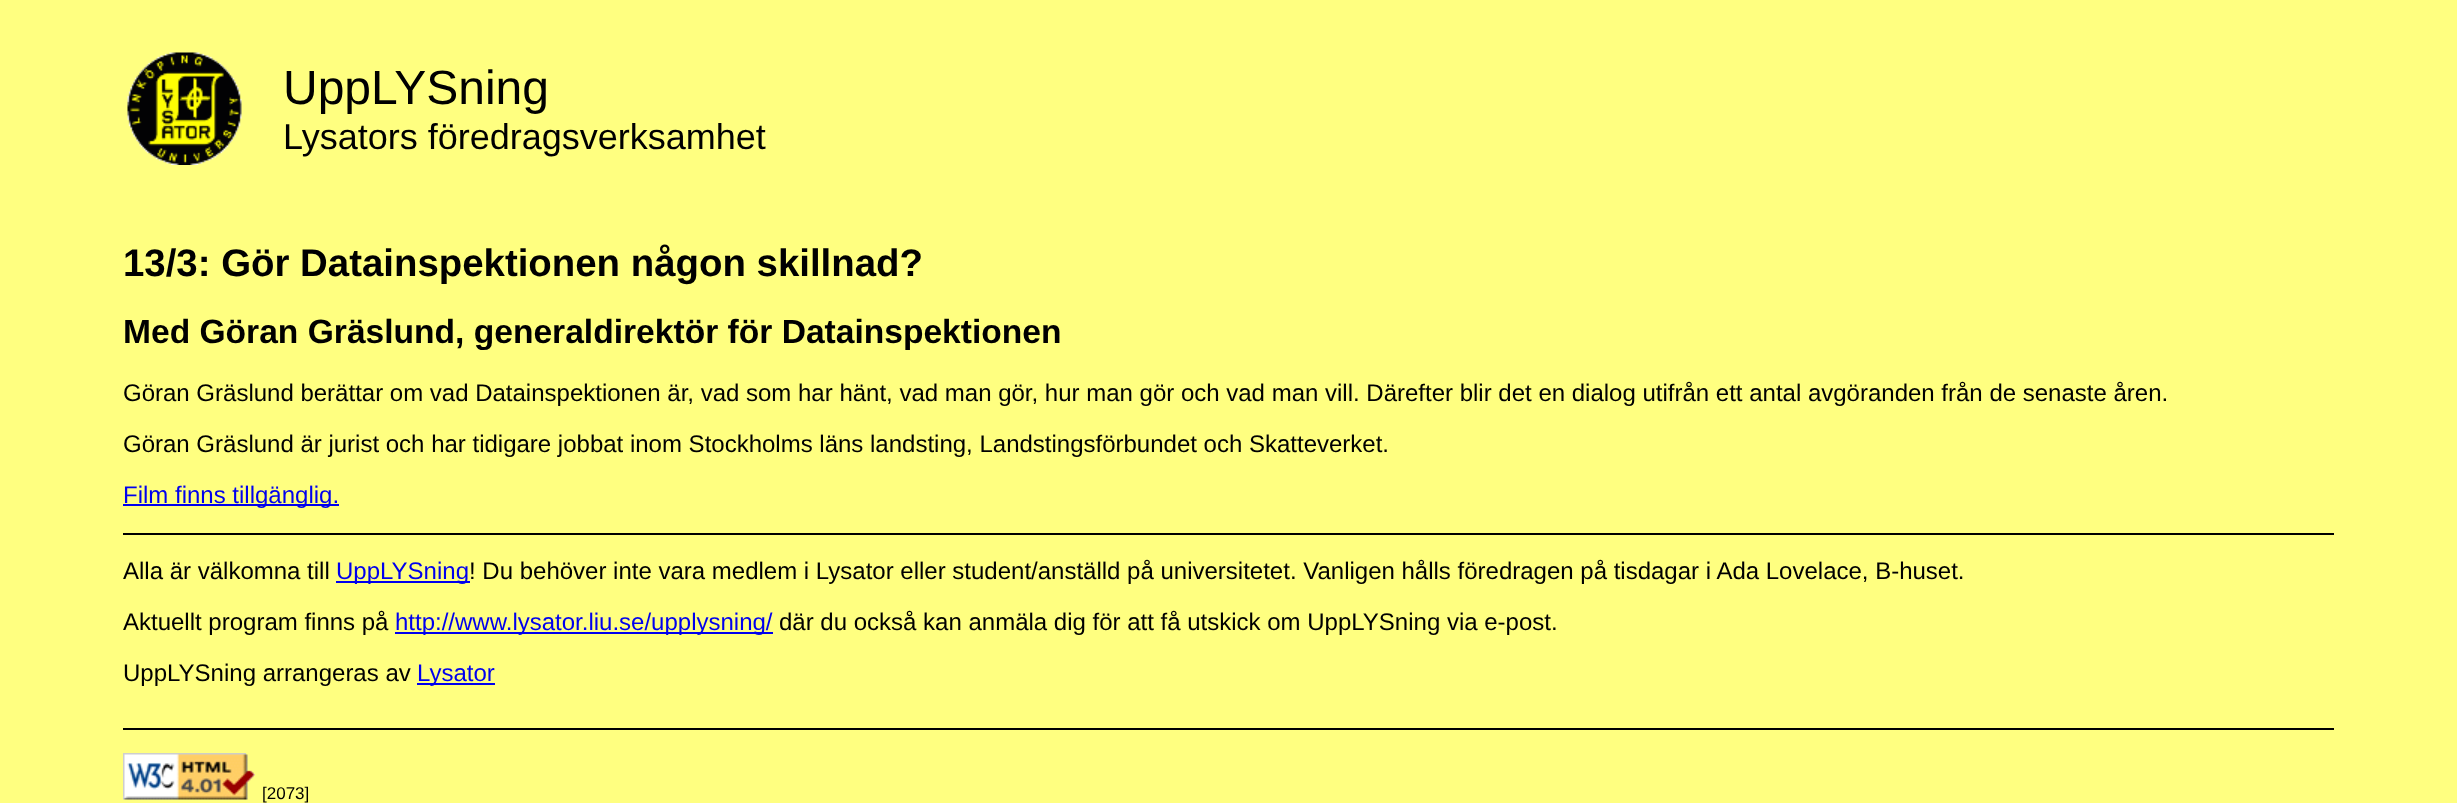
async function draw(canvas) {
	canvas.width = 2457;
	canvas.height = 803;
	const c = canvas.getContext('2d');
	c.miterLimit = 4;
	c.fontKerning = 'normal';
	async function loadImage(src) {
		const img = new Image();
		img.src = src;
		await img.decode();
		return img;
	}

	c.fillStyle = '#ffff80';
	c.fillRect(0, 0, 2457, 803);
	c.drawImage(await loadImage('img1.png'), 127, 52, 115, 113);
	c.font = '48px Liberation Sans';
	c.fillStyle = '#000';
	c.fillText('UppLYSning', 283, 104);
	c.font = '36px Liberation Sans';
	c.fillText('Lysators föredragsverksamhet', 283, 149);
	c.font = 'bold 38.4px Liberation Sans';
	c.fillText('13/3: Gör Datainspektionen någon skillnad?', 123, 276);
	c.font = 'bold 33.6px Liberation Sans';
	c.fillText('Med Göran Gräslund, generaldirektör för Datainspektionen', 123, 343);
	c.font = '24px Liberation Sans';
	c.fillText('Göran Gräslund berättar om vad Datainspektionen är, vad som har hänt, vad man gör, hur man gör och vad man vill. Därefter blir det en dialog utifrån ett antal avgöranden från de senaste åren.', 123, 401);
	c.fillText('Göran Gräslund är jurist och har tidigare jobbat inom Stockholms läns landsting, Landstingsförbundet och Skatteverket.', 123, 452);
	c.fillStyle = '#00e';
	c.fillRect(123, 504, 216, 2);
	c.fillText('Film finns tillgänglig.', 123, 503);
	c.fillStyle = '#000';
	c.fillRect(123, 533, 2211, 2);
	c.fillRect(123, 728, 2211, 2);
	c.fillText('Alla är välkomna till', 123, 579);
	c.fillStyle = '#00e';
	c.fillRect(336, 581, 134, 2);
	c.fillText('UppLYSning', 336, 579);
	c.fillStyle = '#000';
	c.fillText('! Du behöver inte vara medlem i Lysator eller student/anställd på universitetet. Vanligen hålls föredragen på tisdagar i Ada Lovelace, B-huset.', 469, 579);
	c.fillText('Aktuellt program finns på', 123, 630);
	c.fillStyle = '#00e';
	c.fillRect(395, 632, 378, 2);
	c.fillText('http://www.lysator.liu.se/upplysning/', 395, 630);
	c.fillStyle = '#000';
	c.fillText('där du också kan anmäla dig för att få utskick om UppLYSning via e-post.', 779, 630);
	c.fillText('UppLYSning arrangeras av', 123, 681);
	c.fillStyle = '#00e';
	c.fillRect(417, 683, 78, 2);
	c.fillText('Lysator', 417, 681);
	c.drawImage(await loadImage('img2.png'), 123, 753, 132, 47);
	c.font = '17px Liberation Sans';
	c.fillStyle = '#000';
	c.fillText('[2073]', 262, 799);
}

draw(document.querySelector('canvas'));
